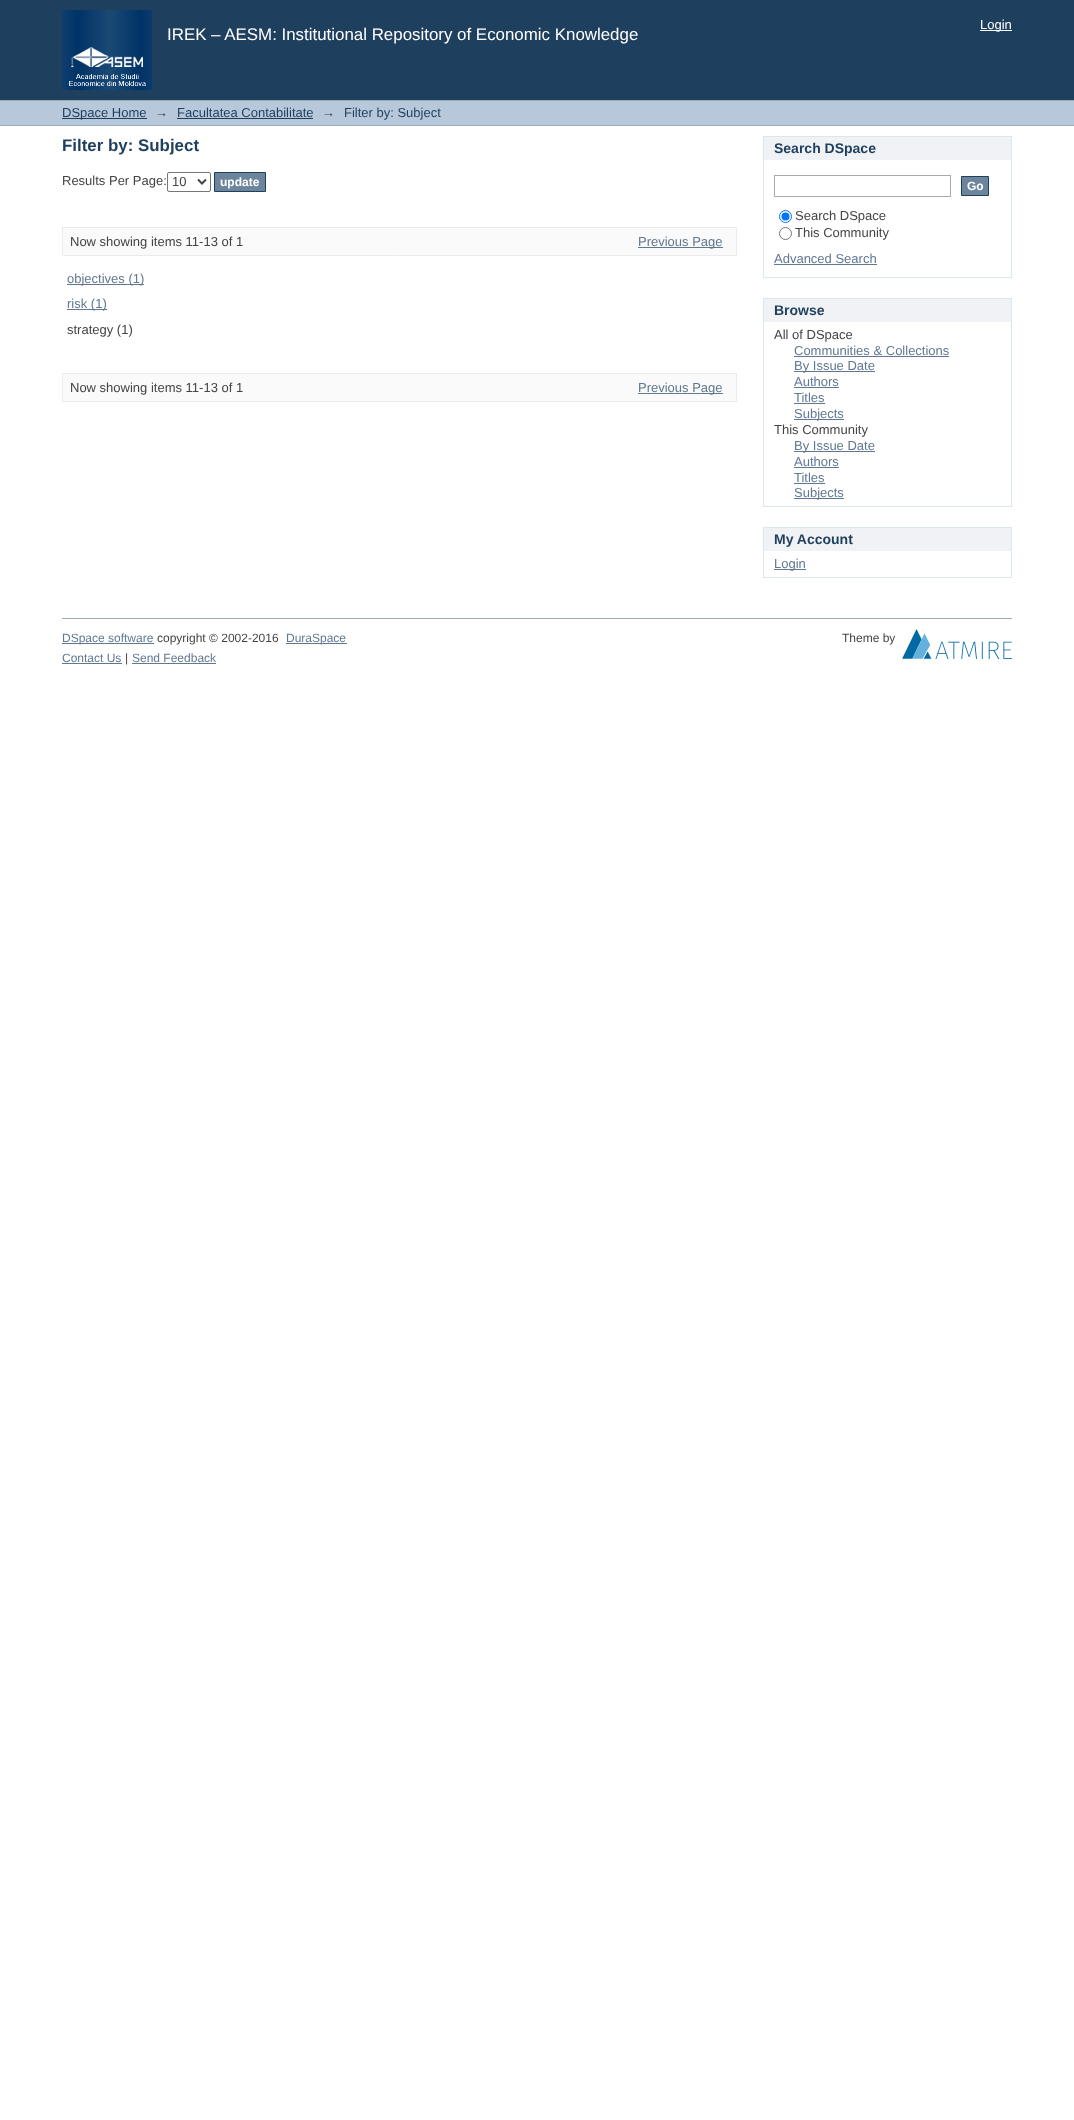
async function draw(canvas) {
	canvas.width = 1074;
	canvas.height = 2120;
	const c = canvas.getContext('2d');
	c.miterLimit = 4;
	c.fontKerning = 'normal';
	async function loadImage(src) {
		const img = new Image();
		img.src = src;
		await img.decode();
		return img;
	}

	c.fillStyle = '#fff';
	c.fillRect(0, 0, 1074, 2120);
	c.fillStyle = '#1f3f5e';
	c.fillRect(0, 0, 1074, 100);
	c.fillStyle = '#fff';
	c.fillRect(980, 30, 32, 1);
	c.font = '13px Liberation Sans';
	c.fillText('Login', 980, 29);
	c.drawImage(await loadImage('img1.png'), 62, 10, 90, 80);
	c.font = '16.9px Liberation Sans';
	c.fillText('IREK – AESM: Institutional Repository of Economic Knowledge', 167, 40);
	for (const [x, y, w, h, color] of [
		[0, 101, 1074, 24, '#b6c8d9'],
		[0, 100, 1074, 1, '#9cacba'],
		[0, 125, 1074, 1, '#9cacba'],
		[62, 118, 85, 1, '#1f3f5e'],
	]) {
		c.fillStyle = color;
		c.fillRect(x, y, w, h);
	}
	c.font = '13px Liberation Sans';
	for (const [text, x, y] of [
		['DSpace Home', 62, 117],
		['→', 155, 117],
		['Facultatea Contabilitate', 177, 117],
	]) {
		c.fillText(text, x, y);
	}
	c.fillRect(177, 118, 136, 1);
	c.fillText('→', 322, 117);
	c.fillText('Filter by: Subject', 344, 117);
	c.font = 'bold 16.9px Liberation Sans';
	c.fillText('Filter by: Subject', 62, 151);
	c.font = '13px Liberation Sans';
	c.fillStyle = '#444';
	c.fillText('Results Per Page:', 62, 185);
	c.beginPath();
	c.roundRect(167.5, 172.5, 43, 19, 1.5);
	c.strokeStyle = '#767676';
	c.stroke();
	c.beginPath();
	c.moveTo(198, 179.5);
	c.lineTo(202, 183.5);
	c.lineTo(206, 179.5);
	c.strokeStyle = '#444';
	c.lineWidth = 2;
	c.stroke();
	c.fillText('10', 172, 186);
	c.fillStyle = '#6d859c';
	c.beginPath();
	c.rect(214.5, 172.5, 51, 19);
	c.fill();
	c.strokeStyle = '#1f3f5e';
	c.lineWidth = 1;
	c.stroke();
	c.font = 'bold 12px Liberation Sans';
	c.fillStyle = '#fff';
	c.fillText('update', 220, 186);
	c.fillStyle = '#fafafa';
	c.beginPath();
	c.rect(62.5, 227.5, 674, 28);
	c.fill();
	c.strokeStyle = '#ebebeb';
	c.stroke();
	c.font = '13px Liberation Sans';
	c.fillStyle = '#444';
	c.fillText('Now showing items 11-13 of 1', 70, 246);
	c.fillStyle = '#607890';
	c.fillRect(638, 247, 85, 1);
	c.fillText('Previous Page', 638, 246);
	c.fillRect(67, 284, 77, 1);
	c.fillText('objectives (1)', 67, 283);
	c.fillRect(67, 309, 40, 1);
	c.fillText('risk (1)', 67, 308);
	c.fillStyle = '#444';
	c.fillText('strategy (1)', 67, 334);
	c.fillStyle = '#fafafa';
	c.beginPath();
	c.rect(62.5, 373.5, 674, 28);
	c.fill();
	c.stroke();
	c.fillStyle = '#444';
	c.fillText('Now showing items 11-13 of 1', 70, 392);
	c.fillStyle = '#607890';
	c.fillRect(638, 393, 85, 1);
	c.fillText('Previous Page', 638, 392);
	for (const [x, y, w, h, color] of [
		[764, 137, 247, 23, '#f0f2f5'],
		[763, 136, 249, 1, '#d8e8eb'],
		[1011, 136, 1, 142, '#d8e8eb'],
		[763, 136, 1, 24, '#d8e8eb'],
	]) {
		c.fillStyle = color;
		c.fillRect(x, y, w, h);
	}
	c.font = 'bold 14px Liberation Sans';
	c.fillStyle = '#1f3f5e';
	c.fillText('Search DSpace', 774, 153);
	c.fillStyle = '#d8e8eb';
	c.fillRect(763, 277, 249, 1);
	c.fillRect(763, 160, 1, 118);
	c.strokeStyle = '#aaa';
	c.strokeRect(774.5, 175.5, 176, 21);
	c.fillStyle = '#6d859c';
	c.beginPath();
	c.rect(961.5, 176.5, 27, 19);
	c.fill();
	c.strokeStyle = '#1f3f5e';
	c.stroke();
	c.font = 'bold 12px Liberation Sans';
	c.fillStyle = '#fff';
	c.fillText('Go', 967, 190);
	c.beginPath();
	c.arc(785.5, 216.5, 6, 0, 2 * Math.PI);
	c.strokeStyle = '#0075ff';
	c.stroke();
	c.fillStyle = '#0075ff';
	c.beginPath();
	c.arc(785.5, 216.5, 4, 0, 2 * Math.PI);
	c.fill();
	c.font = '13px Liberation Sans';
	c.fillStyle = '#444';
	c.fillText('Search DSpace', 795, 220);
	c.beginPath();
	c.arc(785.5, 233.5, 6, 0, 2 * Math.PI);
	c.strokeStyle = '#767676';
	c.stroke();
	c.fillText('This Community', 795, 237);
	c.fillStyle = '#607890';
	c.fillText('Advanced Search', 774, 263);
	for (const [x, y, w, h, color] of [
		[774, 264, 103, 1, '#607890'],
		[764, 299, 247, 23, '#f0f2f5'],
		[763, 298, 249, 1, '#d8e8eb'],
		[1011, 298, 1, 209, '#d8e8eb'],
		[763, 298, 1, 24, '#d8e8eb'],
	]) {
		c.fillStyle = color;
		c.fillRect(x, y, w, h);
	}
	c.font = 'bold 14px Liberation Sans';
	c.fillStyle = '#1f3f5e';
	c.fillText('Browse', 774, 315);
	c.fillStyle = '#d8e8eb';
	c.fillRect(763, 506, 249, 1);
	c.fillRect(763, 322, 1, 185);
	c.font = '13px Liberation Sans';
	c.fillStyle = '#444';
	c.fillText('All of DSpace', 774, 339);
	c.fillStyle = '#607890';
	c.fillText('Communities & Collections', 794, 355);
	c.fillRect(794, 356, 155, 1);
	c.fillRect(794, 371, 81, 1);
	c.fillText('By Issue Date', 794, 370);
	c.fillText('Authors', 794, 386);
	c.fillRect(794, 387, 45, 1);
	c.fillText('Titles', 794, 402);
	c.fillRect(794, 403, 31, 1);
	c.fillRect(794, 419, 50, 1);
	c.fillText('Subjects', 794, 418);
	c.fillStyle = '#444';
	c.fillText('This Community', 774, 434);
	c.fillStyle = '#607890';
	c.fillRect(794, 451, 81, 1);
	c.fillText('By Issue Date', 794, 450);
	c.fillText('Authors', 794, 466);
	c.fillRect(794, 467, 45, 1);
	c.fillText('Titles', 794, 482);
	c.fillRect(794, 483, 31, 1);
	c.fillRect(794, 498, 50, 1);
	c.fillText('Subjects', 794, 497);
	for (const [x, y, w, h, color] of [
		[764, 528, 247, 23, '#f0f2f5'],
		[763, 527, 249, 1, '#d8e8eb'],
		[1011, 527, 1, 51, '#d8e8eb'],
		[763, 527, 1, 24, '#d8e8eb'],
	]) {
		c.fillStyle = color;
		c.fillRect(x, y, w, h);
	}
	c.font = 'bold 14px Liberation Sans';
	c.fillStyle = '#1f3f5e';
	c.fillText('My Account', 774, 544);
	for (const [x, y, w, h, color] of [
		[763, 577, 249, 1, '#d8e8eb'],
		[763, 551, 1, 27, '#d8e8eb'],
		[774, 569, 32, 1, '#607890'],
	]) {
		c.fillStyle = color;
		c.fillRect(x, y, w, h);
	}
	c.font = '13px Liberation Sans';
	c.fillText('Login', 774, 568);
	c.fillStyle = '#9cacba';
	c.fillRect(62, 618, 950, 1);
	c.fillStyle = '#607890';
	c.fillRect(62, 643, 92, 1);
	c.font = '12px Liberation Sans';
	c.fillText('DSpace software', 62, 642);
	c.fillStyle = '#444';
	c.fillText('copyright © 2002-2016', 157, 642);
	c.fillStyle = '#607890';
	c.fillRect(286, 643, 61, 1);
	c.fillText('DuraSpace', 286, 642);
	c.fillStyle = '#444';
	c.fillText('Theme by', 842, 642);
	c.drawImage(await loadImage('img2.png'), 902, 629, 110, 30);
	c.fillStyle = '#607890';
	c.fillText('Contact Us', 62, 662);
	c.fillRect(62, 663, 60, 1);
	c.fillStyle = '#444';
	c.fillText('|', 125, 662);
	c.fillStyle = '#607890';
	c.fillText('Send Feedback', 132, 662);
	c.fillRect(132, 663, 84, 1);
}

draw(document.querySelector('canvas'));
